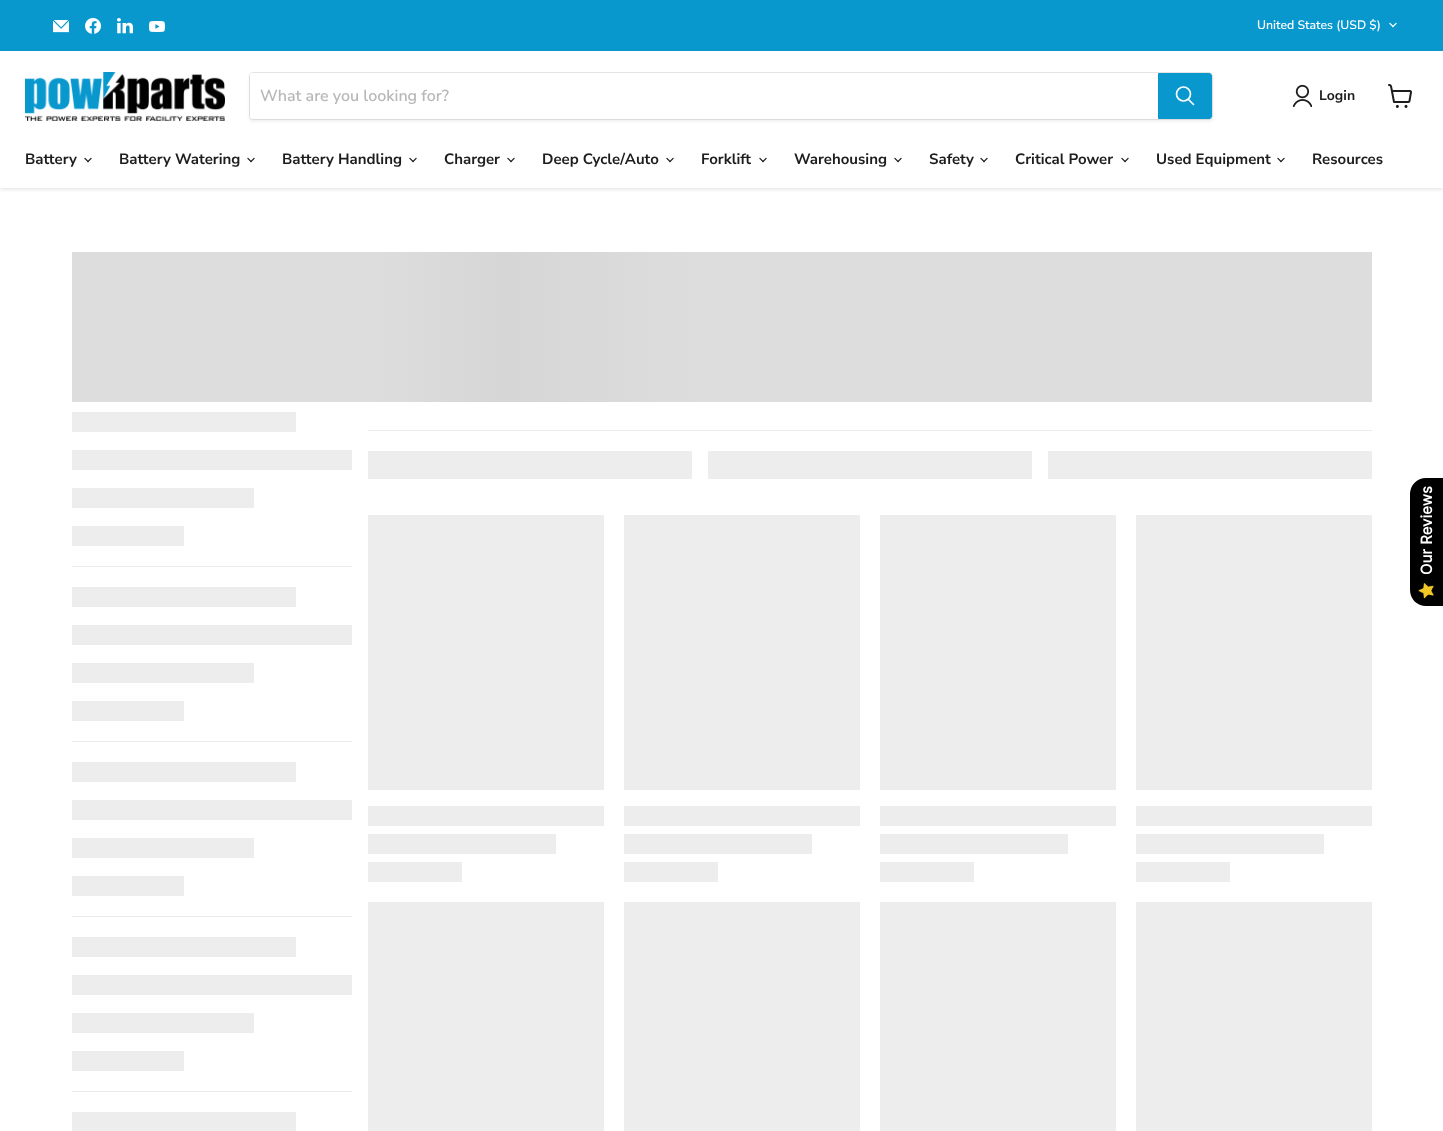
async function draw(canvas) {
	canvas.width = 1443;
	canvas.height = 1131;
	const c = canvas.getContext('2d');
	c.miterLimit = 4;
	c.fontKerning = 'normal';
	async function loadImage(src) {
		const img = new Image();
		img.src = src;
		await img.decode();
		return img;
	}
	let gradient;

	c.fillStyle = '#fff';
	c.fillRect(0, 0, 1443, 1131);
	c.save();
	c.beginPath();
	c.rect(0, 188, 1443, 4);
	c.clip();
	c.fillStyle = '#80808040';
	c.filter = 'blur(2px)';
	c.beginPath();
	c.rect(0, 53, 1443, 136);
	c.fill();
	c.filter = 'none';
	c.restore();
	c.fillStyle = '#0898cd';
	c.fillRect(0, 0, 1443, 51);
	c.fillStyle = '#fff';
	c.fillRect(0, 51, 1443, 1);
	c.drawImage(await loadImage('img1.png'), 53, 20, 16, 13);
	c.drawImage(await loadImage('img2.png'), 85, 18, 16, 16);
	c.drawImage(await loadImage('img3.png'), 117, 18, 16, 16);
	c.drawImage(await loadImage('img4.png'), 149, 21, 16, 11);
	c.font = '600 12.25px Nunito Sans';
	c.fillText('United States (USD $)', 1257, 29);
	c.drawImage(await loadImage('img5.png'), 1389, 22, 8, 6);
	c.drawImage(await loadImage('img6.png'), 25, 72, 200, 49);
	c.fillStyle = '#8080801c';
	c.filter = 'blur(1.5px)';
	c.beginPath();
	c.roundRect(249, 74, 964, 48, 4);
	c.fill();
	c.filter = 'none';
	c.beginPath();
	c.roundRect(249.5, 72.5, 963, 47, 3.5);
	c.strokeStyle = '#80808033';
	c.stroke();
	c.fillStyle = '#fff';
	c.beginPath();
	c.roundRect(250, 73, 908, 46, [3, 0, 0, 3]);
	c.fill();
	c.font = '600 16px Nunito Sans';
	c.fillStyle = '#b8b8b8';
	c.fillText('What are you looking for?', 260, 101);
	c.fillStyle = '#0898cd';
	c.beginPath();
	c.roundRect(1158.5, 73.5, 53, 45, [0, 2.5, 2.5, 0]);
	c.fill();
	c.strokeStyle = '#0898cd';
	c.stroke();
	c.beginPath();
	c.moveTo(1193.5, 104.5);
	c.lineTo(1188.5, 99.5);
	c.strokeStyle = '#fff';
	c.lineWidth = 1.7;
	c.lineCap = 'round';
	c.stroke();
	c.beginPath();
	c.arc(1183.5, 94, 7, 0, 2 * Math.PI);
	c.stroke();
	c.drawImage(await loadImage('img7.png'), 1292, 84, 20, 24);
	c.font = 'bold 14px Nunito Sans';
	c.fillStyle = '#1d1d1d';
	c.fillText('Login', 1319, 100);
	c.drawImage(await loadImage('img8.png'), 1388, 84, 24, 24);
	c.font = 'bold 15px Nunito Sans';
	c.fillText('Battery', 25, 164);
	c.drawImage(await loadImage('img9.png'), 84, 157, 8, 6);
	c.fillText('Battery Watering', 119, 164);
	c.drawImage(await loadImage('img9.png'), 247, 157, 8, 6);
	c.fillText('Battery Handling', 282, 164);
	c.drawImage(await loadImage('img9.png'), 409, 157, 8, 6);
	c.fillText('Charger', 444, 164);
	c.drawImage(await loadImage('img9.png'), 507, 157, 8, 6);
	c.fillText('Deep Cycle/Auto', 542, 164);
	c.drawImage(await loadImage('img9.png'), 666, 157, 8, 6);
	c.fillText('Forklift', 701, 164);
	c.drawImage(await loadImage('img9.png'), 759, 157, 8, 6);
	c.fillText('Warehousing', 794, 164);
	c.drawImage(await loadImage('img9.png'), 894, 157, 8, 6);
	c.fillText('Safety', 929, 164);
	c.drawImage(await loadImage('img9.png'), 980, 157, 8, 6);
	c.fillText('Critical Power', 1015, 164);
	c.drawImage(await loadImage('img9.png'), 1121, 157, 8, 6);
	c.fillText('Used Equipment', 1156, 164);
	c.drawImage(await loadImage('img9.png'), 1277, 157, 8, 6);
	c.fillText('Resources', 1312, 164);
	c.fillStyle = '#ddd';
	c.fillRect(72, 252, 200, 150);
	gradient = c.createLinearGradient(272, 252, 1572, 252);
	gradient.addColorStop(0.08, '#ddd');
	gradient.addColorStop(0.18, '#d6d6d6');
	gradient.addColorStop(0.33, '#ddd');
	c.fillStyle = gradient;
	c.fillRect(272, 252, 1100, 150);
	for (const [x, y, w, h, color] of [
		[72, 566, 280, 1, '#ebebeb'],
		[72, 412, 224, 20, '#ededed'],
		[72, 450, 280, 20, '#ededed'],
		[72, 488, 182, 20, '#ededed'],
		[72, 526, 112, 20, '#ededed'],
		[72, 741, 280, 1, '#ebebeb'],
		[72, 587, 224, 20, '#ededed'],
		[72, 625, 280, 20, '#ededed'],
		[72, 663, 182, 20, '#ededed'],
		[72, 701, 112, 20, '#ededed'],
		[72, 916, 280, 1, '#ebebeb'],
		[72, 762, 224, 20, '#ededed'],
		[72, 800, 280, 20, '#ededed'],
		[72, 838, 182, 20, '#ededed'],
		[72, 876, 112, 20, '#ededed'],
		[72, 1091, 280, 1, '#ebebeb'],
		[72, 937, 224, 20, '#ededed'],
		[72, 975, 280, 20, '#ededed'],
		[72, 1013, 182, 20, '#ededed'],
		[72, 1051, 112, 20, '#ededed'],
		[72, 1112, 224, 19, '#ededed'],
		[368, 430, 1004, 1, '#ebebeb'],
		[368, 451, 324, 28, '#ededed'],
		[708, 451, 324, 28, '#ededed'],
		[1048, 451, 324, 28, '#ededed'],
		[368, 515, 236, 275, '#ededed'],
		[368, 806, 236, 20, '#ededed'],
		[368, 834, 188, 20, '#ededed'],
		[368, 862, 94, 20, '#ededed'],
		[624, 515, 236, 275, '#ededed'],
		[624, 806, 236, 20, '#ededed'],
		[624, 834, 188, 20, '#ededed'],
		[624, 862, 94, 20, '#ededed'],
		[880, 515, 236, 275, '#ededed'],
		[880, 806, 236, 20, '#ededed'],
		[880, 834, 188, 20, '#ededed'],
		[880, 862, 94, 20, '#ededed'],
		[1136, 515, 236, 275, '#ededed'],
		[1136, 806, 236, 20, '#ededed'],
		[1136, 834, 188, 20, '#ededed'],
		[1136, 862, 94, 20, '#ededed'],
		[368, 902, 236, 229, '#ededed'],
		[624, 902, 236, 229, '#ededed'],
		[880, 902, 236, 229, '#ededed'],
		[1136, 902, 236, 229, '#ededed'],
	]) {
		c.fillStyle = color;
		c.fillRect(x, y, w, h);
	}
	c.fillStyle = '#000';
	c.beginPath();
	c.moveTo(1410, 590);
	c.lineTo(1410, 494);
	c.bezierCurveTo(1410, 485, 1417, 478, 1426, 478);
	c.lineTo(1443, 478);
	c.lineTo(1443, 606);
	c.lineTo(1426, 606);
	c.bezierCurveTo(1417, 606, 1410, 599, 1410, 590);
	c.closePath();
	c.fill();
	c.font = 'bold 15px Inter';
	c.fillStyle = '#fff';
	c.save();
	c.translate(1432, 575);
	c.rotate(-90 * Math.PI / 180);
	c.fillText('Our Reviews', 0, 0);
	c.restore();
	c.drawImage(await loadImage('img10.png'), 1418, 583, 16, 16);
}

draw(document.querySelector('canvas'));
